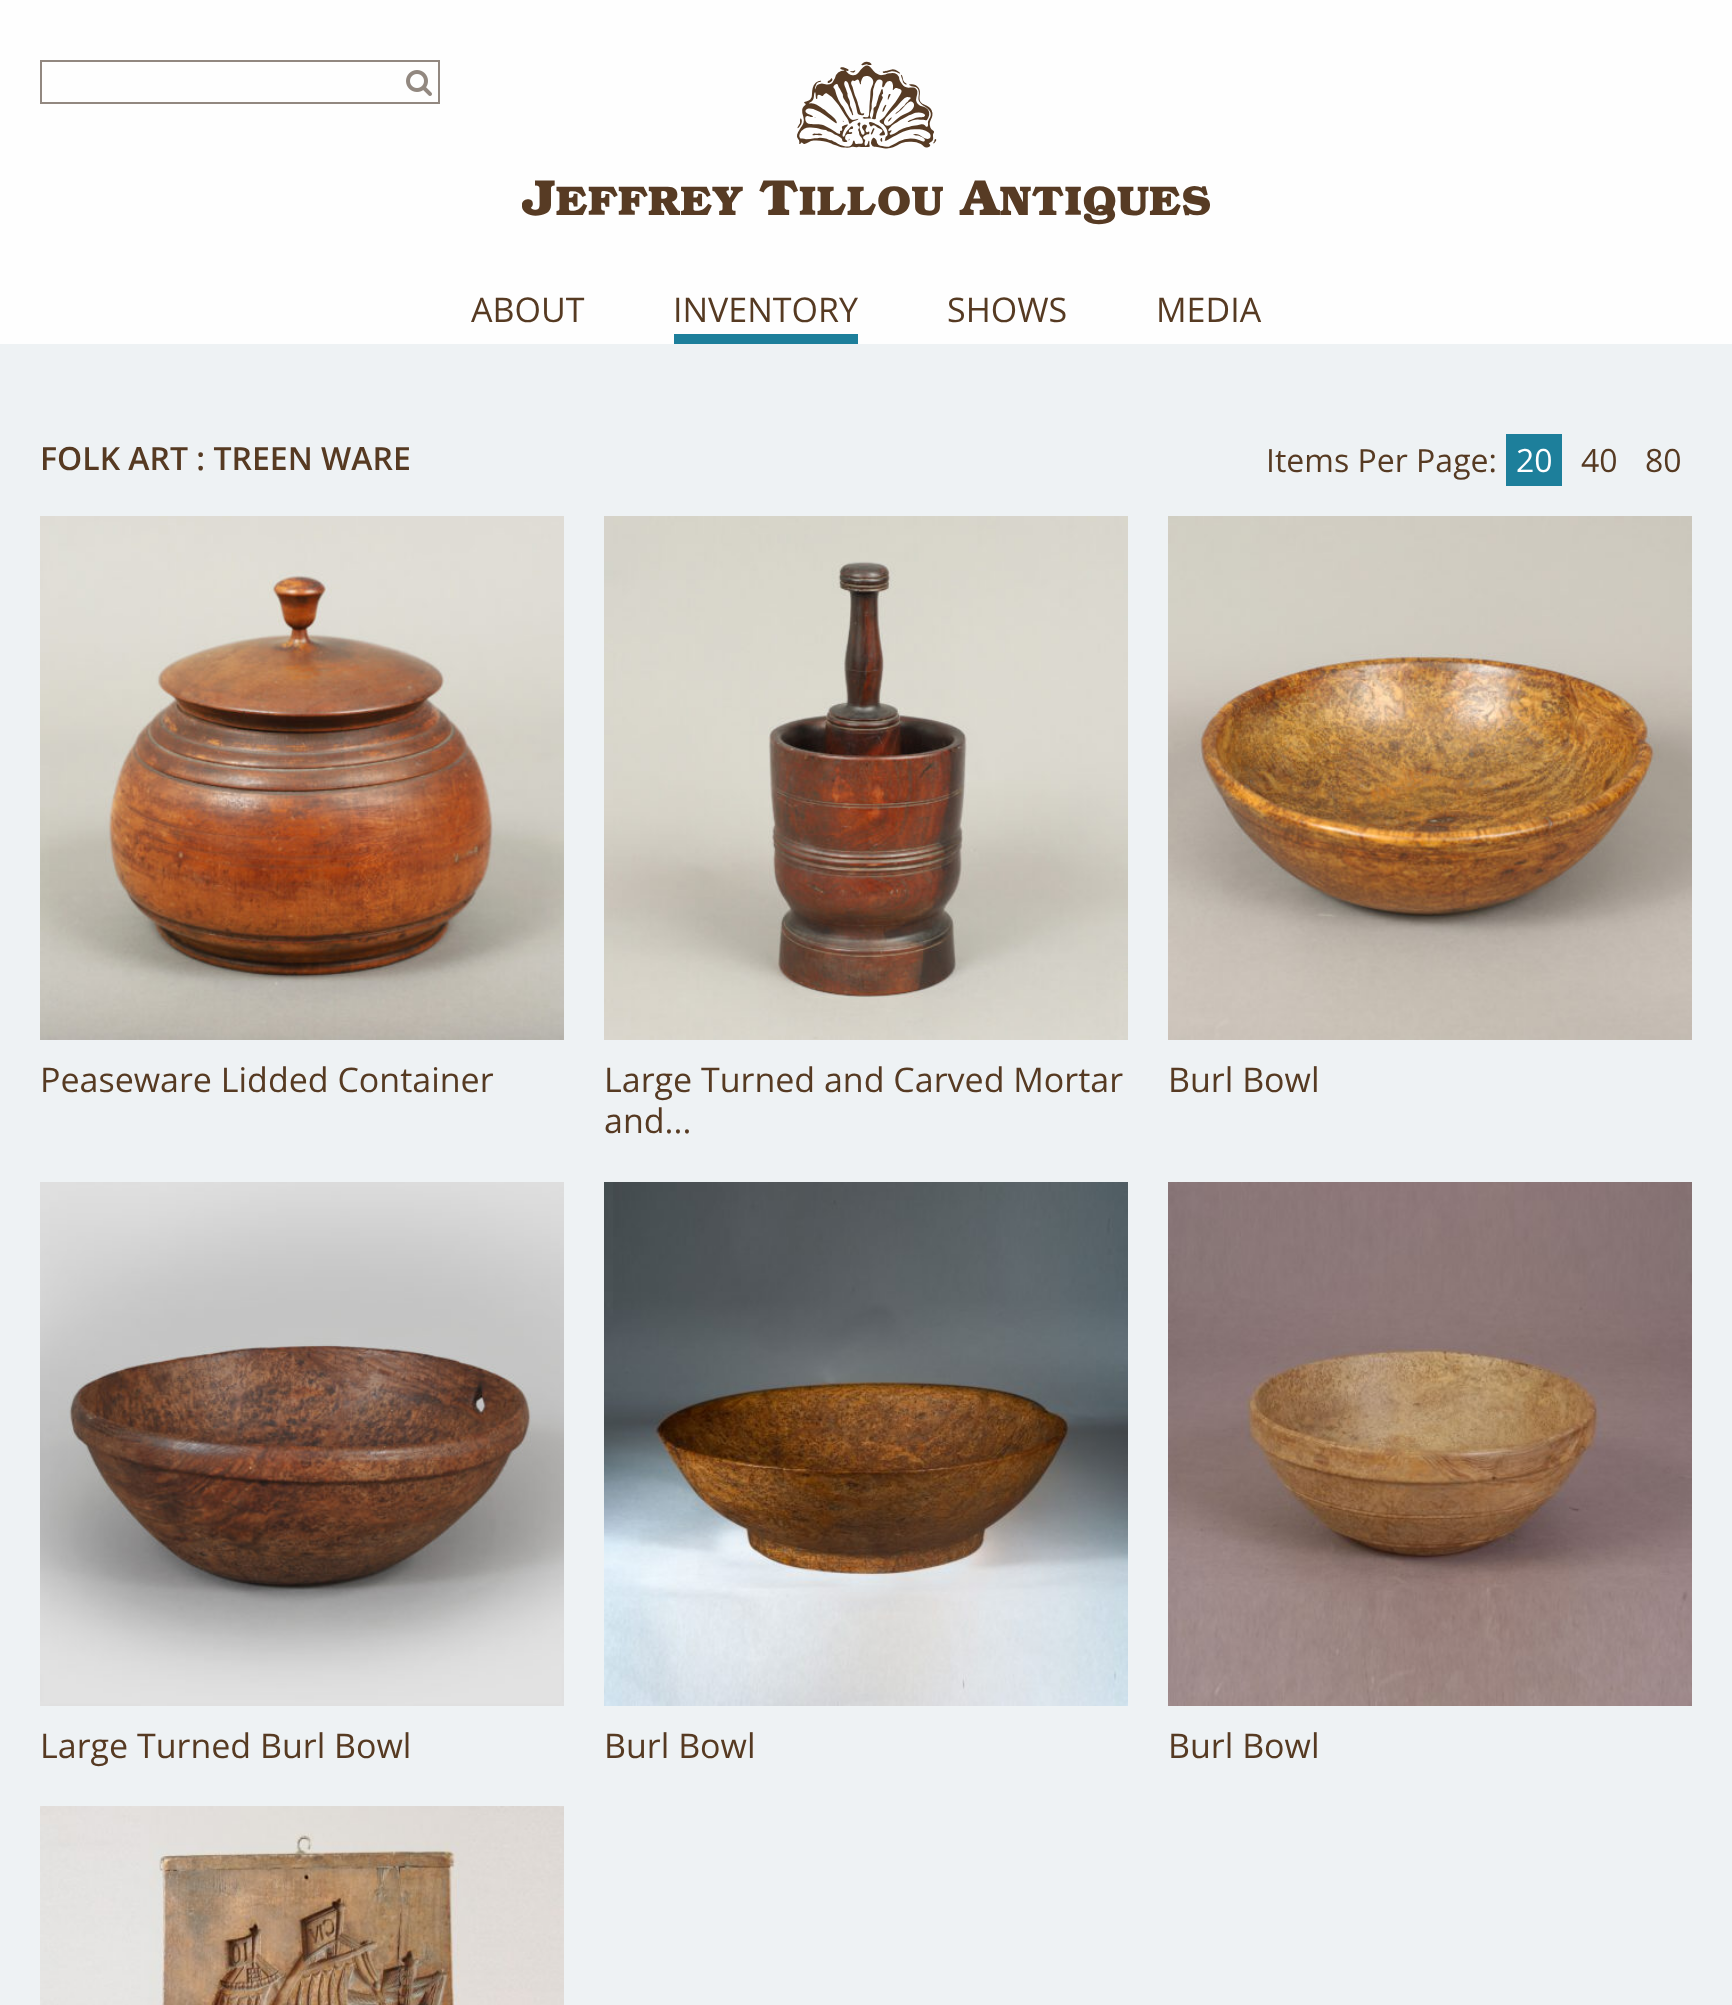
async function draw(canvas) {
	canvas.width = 1732;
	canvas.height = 2005;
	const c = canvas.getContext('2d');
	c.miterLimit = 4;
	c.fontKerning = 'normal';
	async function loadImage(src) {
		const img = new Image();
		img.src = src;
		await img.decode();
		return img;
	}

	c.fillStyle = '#eef2f4';
	c.fillRect(0, 0, 1732, 2005);
	c.fillStyle = '#fefefe';
	c.fillRect(0, 0, 1732, 344);
	c.strokeStyle = '#928880';
	c.lineWidth = 2;
	c.strokeRect(41, 61, 398, 42);
	c.drawImage(await loadImage('img1.png'), 406, 70, 26, 26);
	c.drawImage(await loadImage('img2.png'), 522, 61, 688, 164);
	c.font = '34px Open Sans';
	c.fillStyle = '#563a22';
	c.fillText('ABOUT', 471, 322);
	c.fillStyle = '#1d7f9b';
	c.fillRect(674, 334, 184, 10);
	c.fillStyle = '#563a22';
	for (const [text, x, y] of [
		['INVENTORY', 673, 322],
		['SHOWS', 947, 322],
		['MEDIA', 1156, 322],
	]) {
		c.fillText(text, x, y);
	}
	c.font = '600 32px Open Sans';
	c.fillText('FOLK ART : TREEN WARE', 40, 470);
	c.font = '32px Open Sans';
	c.fillText('Items Per Page:', 1266, 472);
	c.fillStyle = '#1d7f9b';
	c.fillRect(1506, 434, 56, 52);
	c.fillStyle = '#fefefe';
	c.fillText('20', 1516, 472);
	c.fillStyle = '#563a22';
	c.fillText('40', 1581, 472);
	c.fillText('80', 1645, 472);
	c.drawImage(await loadImage('img3.png'), 40, 516, 524, 524);
	c.font = '34px Open Sans';
	c.fillText('Peaseware Lidded Container', 40, 1092);
	c.drawImage(await loadImage('img4.png'), 604, 516, 524, 524);
	c.fillText('Large Turned and Carved Mortar', 604, 1092);
	c.fillText('and...', 604, 1133);
	c.drawImage(await loadImage('img5.png'), 1168, 516, 524, 524);
	c.fillText('Burl Bowl', 1168, 1092);
	c.drawImage(await loadImage('img6.png'), 40, 1182, 524, 524);
	c.fillText('Large Turned Burl Bowl', 40, 1758);
	c.drawImage(await loadImage('img7.png'), 604, 1182, 524, 524);
	c.fillText('Burl Bowl', 604, 1758);
	c.drawImage(await loadImage('img8.png'), 1168, 1182, 524, 524);
	c.fillText('Burl Bowl', 1168, 1758);
	c.drawImage(await loadImage('img9.png'), 40, 1806, 524, 199);
}

draw(document.querySelector('canvas'));
